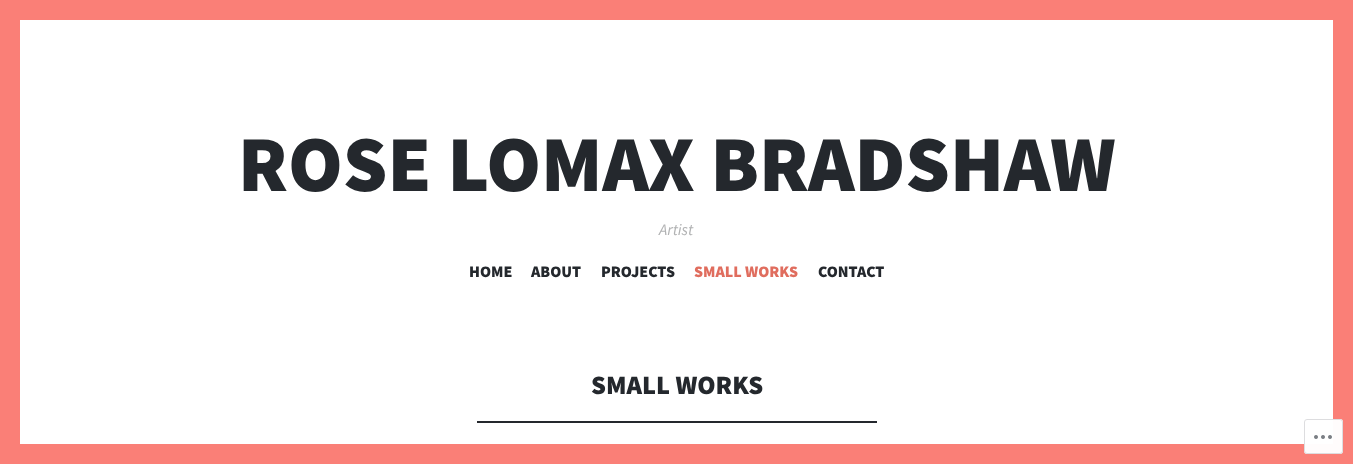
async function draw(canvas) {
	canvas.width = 1353;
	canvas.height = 464;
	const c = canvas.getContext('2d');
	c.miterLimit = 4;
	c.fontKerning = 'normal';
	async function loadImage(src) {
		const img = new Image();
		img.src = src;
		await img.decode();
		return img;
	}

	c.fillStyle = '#fa7f77';
	c.fillRect(0, 0, 1353, 464);
	c.fillStyle = '#fff';
	c.fillRect(20, 20, 1313, 424);
	c.font = '900 79.25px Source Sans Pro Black';
	c.fillStyle = '#24282d';
	c.fillText('ROSE LOMAX BRADSHAW', 238, 191);
	c.font = 'italic 16px Source Sans Pro';
	c.fillStyle = '#b1b2b3';
	c.fillText('Artist', 659, 235);
	c.font = '900 16px Source Sans Pro Black';
	c.fillStyle = '#24282d';
	for (const [text, x, y] of [
		['HOME', 469, 277],
		['ABOUT', 531, 277],
		['PROJECTS', 601, 277],
	]) {
		c.fillText(text, x, y);
	}
	c.fillStyle = '#e06d5e';
	c.fillText('SMALL WORKS', 694, 277);
	c.fillStyle = '#24282d';
	c.fillText('CONTACT', 818, 277);
	c.font = '900 26.5px Source Sans Pro Black';
	c.fillText('SMALL WORKS', 591, 394);
	c.fillRect(477, 421, 400, 2);
	c.fillStyle = '#fffffffa';
	c.beginPath();
	c.roundRect(1304, 419, 39, 35, 3);
	c.fill();
	c.beginPath();
	c.roundRect(1304.5, 419.5, 38, 34, 2.5);
	c.strokeStyle = '#dcdcdefa';
	c.stroke();
	c.drawImage(await loadImage('img1.png'), 1314, 435, 18, 4);
}

draw(document.querySelector('canvas'));
